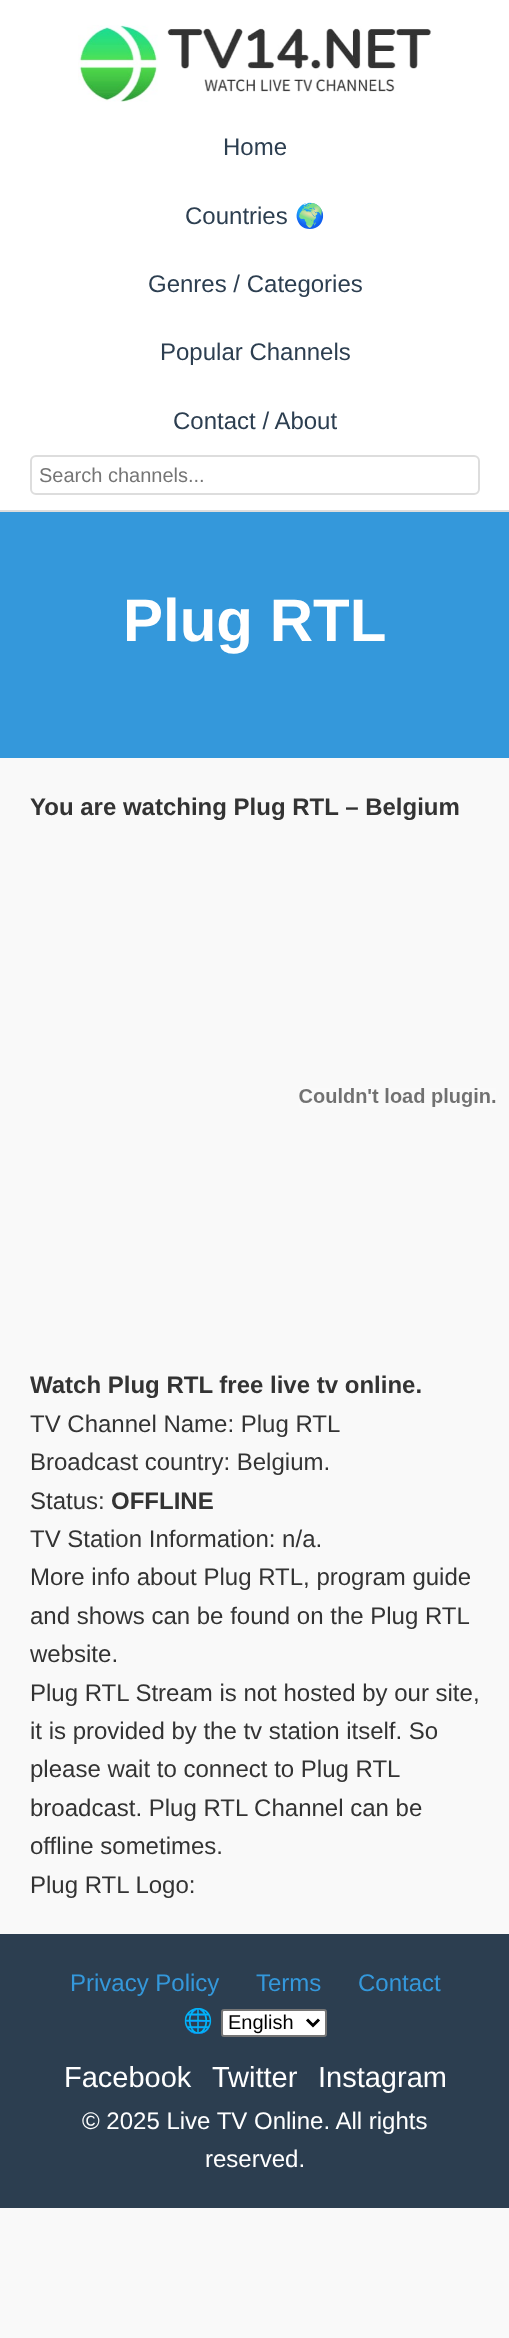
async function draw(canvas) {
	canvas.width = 509;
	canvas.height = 2338;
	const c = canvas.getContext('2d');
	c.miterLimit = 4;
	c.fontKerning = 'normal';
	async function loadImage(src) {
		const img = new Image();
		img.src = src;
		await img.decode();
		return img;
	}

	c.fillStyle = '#f9f9f9';
	c.fillRect(0, 0, 509, 2338);
	c.fillStyle = '#fff';
	c.fillRect(0, 0, 509, 510);
	c.fillStyle = '#ddd';
	c.fillRect(0, 510, 509, 2);
	c.drawImage(await loadImage('img1.png'), 78, 25, 354, 77);
	c.font = '24px Liberation Sans';
	c.fillStyle = '#2c3e50';
	c.fillText('Home', 223, 155);
	c.fillText('Countries', 185, 224);
	c.font = '24px Noto Color Emoji';
	c.fillText('🌍', 295, 224);
	c.font = '24px Liberation Sans';
	for (const [text, x, y] of [
		['Genres / Categories', 148, 292],
		['Popular Channels', 160, 360],
		['Contact / About', 173, 429],
	]) {
		c.fillText(text, x, y);
	}
	c.beginPath();
	c.roundRect(31, 456, 448, 38, 5);
	c.strokeStyle = '#ddd';
	c.lineWidth = 2;
	c.stroke();
	c.font = '20px Liberation Sans';
	c.fillStyle = '#757575';
	c.fillText('Search channels...', 39, 482);
	c.fillStyle = '#3498db';
	c.fillRect(0, 512, 509, 246);
	c.font = 'bold 60px Liberation Sans';
	c.fillStyle = '#fff';
	c.fillText('Plug RTL', 123, 641);
	c.font = 'bold 24px Liberation Sans';
	c.fillStyle = '#333';
	c.fillText('You are watching Plug RTL – Belgium', 30, 815);
	c.drawImage(await loadImage('img2.png'), 299, 1088, 197, 19);
	c.fillText('Watch Plug RTL free live tv online.', 30, 1393);
	c.font = '24px Liberation Sans';
	for (const [text, x, y] of [
		['TV Channel Name: Plug RTL', 30, 1432],
		['Broadcast country: Belgium.', 30, 1470],
		['Status:', 30, 1509],
	]) {
		c.fillText(text, x, y);
	}
	c.font = 'bold 24px Liberation Sans';
	c.fillText('OFFLINE', 111, 1509);
	c.font = '24px Liberation Sans';
	for (const [text, x, y] of [
		['TV Station Information: n/a.', 30, 1547],
		['More info about Plug RTL, program guide', 30, 1585],
		['and shows can be found on the Plug RTL', 30, 1624],
		['website.', 30, 1662],
		['Plug RTL Stream is not hosted by our site,', 30, 1701],
		['it is provided by the tv station itself. So', 30, 1739],
		['please wait to connect to Plug RTL', 30, 1777],
		['broadcast. Plug RTL Channel can be', 30, 1816],
		['offline sometimes.', 30, 1854],
		['Plug RTL Logo:', 30, 1893],
	]) {
		c.fillText(text, x, y);
	}
	c.fillStyle = '#2c3e50';
	c.fillRect(0, 1934, 509, 274);
	c.fillStyle = '#3498db';
	for (const [text, x, y] of [
		['Privacy Policy', 70, 1991],
		['Terms', 256, 1991],
		['Contact', 358, 1991],
	]) {
		c.fillText(text, x, y);
	}
	c.font = '24px Noto Color Emoji';
	c.fillStyle = '#fff';
	c.fillText('🌐', 183, 2029);
	c.beginPath();
	c.roundRect(222, 2010, 104, 26, 2);
	c.fill();
	c.strokeStyle = '#767676';
	c.stroke();
	c.beginPath();
	c.moveTo(307, 2019.5);
	c.lineTo(313, 2025.5);
	c.lineTo(319, 2019.5);
	c.strokeStyle = '#000';
	c.lineWidth = 3;
	c.stroke();
	c.font = '20px Liberation Sans';
	c.fillStyle = '#000';
	c.fillText('English', 228, 2029);
	c.font = '29px Liberation Sans';
	c.fillStyle = '#fff';
	for (const [text, x, y] of [
		['Facebook', 64, 2087],
		['Twitter', 212, 2087],
		['Instagram', 318, 2087],
	]) {
		c.fillText(text, x, y);
	}
	c.font = '24px Liberation Sans';
	c.fillText('© 2025 Live TV Online. All rights', 82, 2129);
	c.fillText('reserved.', 205, 2167);
}

draw(document.querySelector('canvas'));
